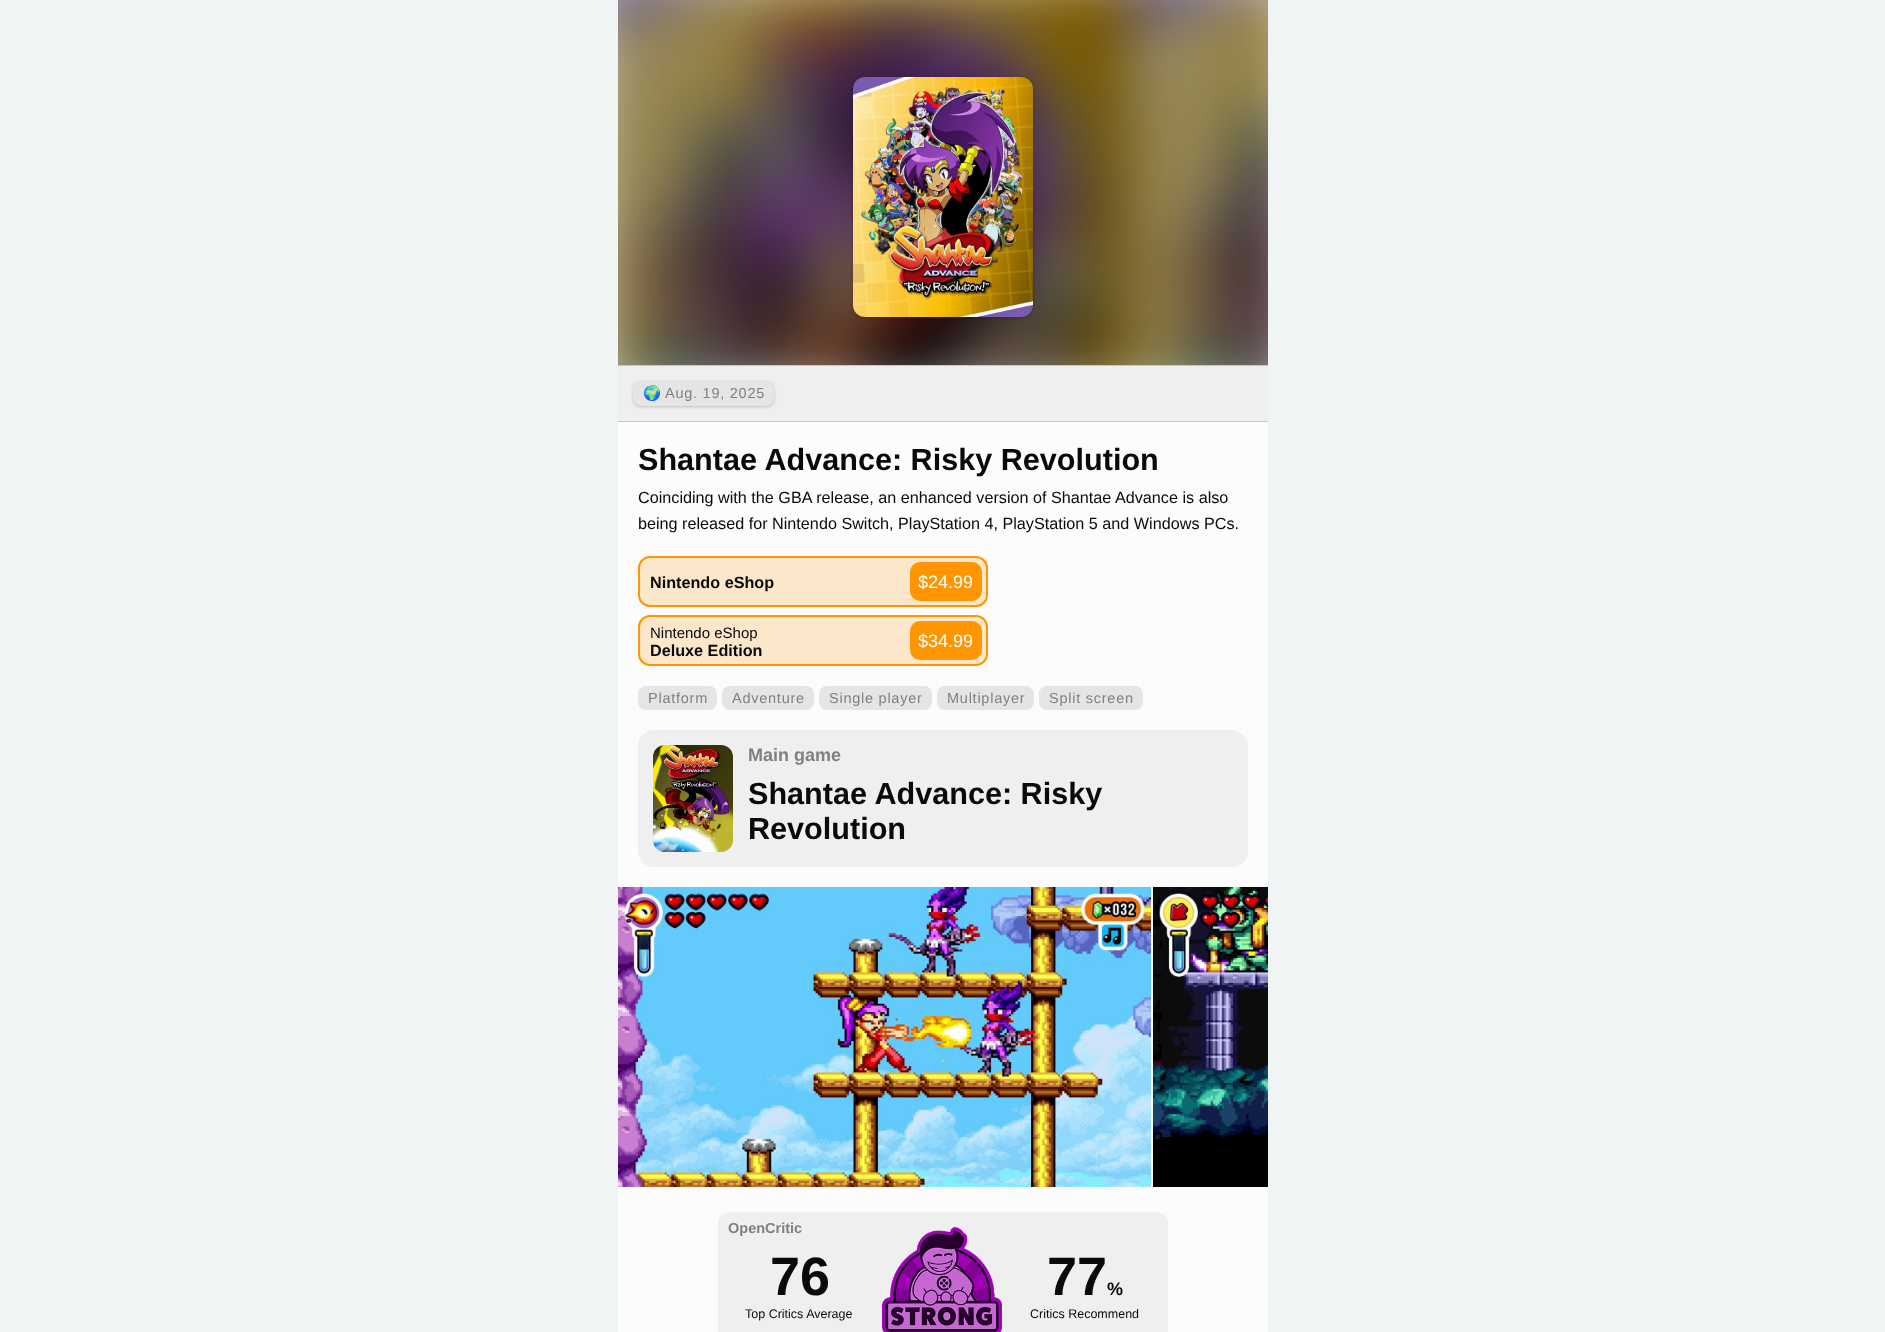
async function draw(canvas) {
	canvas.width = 1885;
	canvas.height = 1332;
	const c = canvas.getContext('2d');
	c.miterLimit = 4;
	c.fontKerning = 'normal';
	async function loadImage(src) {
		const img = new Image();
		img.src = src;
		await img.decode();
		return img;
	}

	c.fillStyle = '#f0f4f5';
	c.fillRect(0, 0, 1885, 1332);
	c.fillStyle = '#fcfcfc';
	c.fillRect(618, 0, 650, 1332);
	c.fillStyle = '#c6c6c8';
	c.fillRect(618, 365, 650, 1);
	c.drawImage(await loadImage('img1.png'), 618, 0, 650, 365);
	c.fillStyle = '#00000033';
	c.filter = 'blur(1.5px)';
	c.beginPath();
	c.roundRect(853, 78, 180, 240, 12);
	c.fill();
	c.filter = 'none';
	c.drawImage(await loadImage('img2.png'), 853, 77, 180, 240);
	c.fillStyle = '#efeff0';
	c.fillRect(618, 366, 650, 55);
	c.fillStyle = '#c6c6c8';
	c.fillRect(618, 421, 650, 1);
	c.fillStyle = '#00000033';
	c.filter = 'blur(1.5px)';
	c.beginPath();
	c.roundRect(633, 382, 141, 25, 8);
	c.fill();
	c.filter = 'none';
	c.fillStyle = '#e5e5e6';
	c.beginPath();
	c.roundRect(633, 381, 141, 25, 8);
	c.fill();
	c.letterSpacing = '0.75px';
	c.font = '14.5px Noto Color Emoji';
	c.fillStyle = '#808080';
	c.fillText('🌍', 643, 398);
	c.font = '14.5px Liberation Sans';
	c.fillText('Aug. 19, 2025', 665, 398);
	c.letterSpacing = '0px';
	c.font = 'bold 30.6px Liberation Sans';
	c.fillStyle = '#0a0a0a';
	c.fillText('Shantae Advance: Risky Revolution', 638, 470);
	c.font = '16.2px Liberation Sans';
	c.fillText('Coinciding with the GBA release, an enhanced version of Shantae Advance is also', 638, 503);
	c.fillText('being released for Nintendo Switch, PlayStation 4, PlayStation 5 and Windows PCs.', 638, 529);
	c.fillStyle = '#fde7ca';
	c.beginPath();
	c.roundRect(639, 557, 348, 49, 11);
	c.fill();
	c.strokeStyle = '#ff9500';
	c.lineWidth = 2;
	c.stroke();
	c.font = 'bold 16.2px Liberation Sans';
	c.fillStyle = '#0a0a0a';
	c.fillText('Nintendo eShop', 650, 588);
	c.fillStyle = '#ff9500';
	c.beginPath();
	c.roundRect(910, 562, 72, 39, 10);
	c.fill();
	c.font = '18px Liberation Sans';
	c.fillStyle = '#fff';
	c.fillText('$24.99', 918, 588);
	c.fillStyle = '#fde7ca';
	c.beginPath();
	c.roundRect(639, 616, 348, 49, 11);
	c.fill();
	c.stroke();
	c.font = '15px Liberation Sans';
	c.fillStyle = '#0a0a0a';
	c.fillText('Nintendo eShop', 650, 638);
	c.font = 'bold 16.2px Liberation Sans';
	c.fillText('Deluxe Edition', 650, 656);
	c.fillStyle = '#ff9500';
	c.beginPath();
	c.roundRect(910, 621, 72, 39, 10);
	c.fill();
	c.font = '18px Liberation Sans';
	c.fillStyle = '#fff';
	c.fillText('$34.99', 918, 647);
	c.fillStyle = '#e5e5e6';
	c.beginPath();
	c.roundRect(638, 686, 79, 24, 8);
	c.fill();
	c.letterSpacing = '0.75px';
	c.font = '14.5px Liberation Sans';
	c.fillStyle = '#808080';
	c.fillText('Platform', 648, 703);
	c.fillStyle = '#e5e5e6';
	c.beginPath();
	c.roundRect(722, 686, 92, 24, 8);
	c.fill();
	c.fillStyle = '#808080';
	c.fillText('Adventure', 732, 703);
	c.fillStyle = '#e5e5e6';
	c.beginPath();
	c.roundRect(819, 686, 113, 24, 8);
	c.fill();
	c.fillStyle = '#808080';
	c.fillText('Single player', 829, 703);
	c.fillStyle = '#e5e5e6';
	c.beginPath();
	c.roundRect(937, 686, 97, 24, 8);
	c.fill();
	c.fillStyle = '#808080';
	c.fillText('Multiplayer', 947, 703);
	c.fillStyle = '#e5e5e6';
	c.beginPath();
	c.roundRect(1039, 686, 104, 24, 8);
	c.fill();
	c.fillStyle = '#808080';
	c.fillText('Split screen', 1049, 703);
	c.fillStyle = '#efeff0';
	c.beginPath();
	c.roundRect(638, 730, 610, 137, 16);
	c.fill();
	c.drawImage(await loadImage('img3.png'), 653, 745, 80, 107);
	c.letterSpacing = '0px';
	c.font = 'bold 18px Liberation Sans';
	c.fillStyle = '#808080';
	c.fillText('Main game', 748, 761);
	c.font = 'bold 30.6px Liberation Sans';
	c.fillStyle = '#0a0a0a';
	c.fillText('Shantae Advance: Risky', 748, 804);
	c.fillText('Revolution', 748, 839);
	c.drawImage(await loadImage('img4.png'), 618, 887, 533, 300);
	c.drawImage(await loadImage('img5.png'), 1153, 887, 115, 300);
	c.fillStyle = '#efeff0';
	c.beginPath();
	c.roundRect(718, 1212, 450, 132, 12);
	c.fill();
	c.font = 'bold 14.5px Liberation Sans';
	c.fillStyle = '#808080';
	c.fillText('OpenCritic', 728, 1233);
	c.drawImage(await loadImage('img6.png'), 882, 1227, 120, 105);
	c.font = 'bold 54px Liberation Sans';
	c.fillStyle = '#0a0a0a';
	c.fillText('76', 770, 1295);
	c.font = '12.5px Liberation Sans';
	c.fillText('Top Critics Average', 745, 1318);
	c.font = 'bold 54px Liberation Sans';
	c.fillText('77', 1047, 1295);
	c.font = 'bold 18px Liberation Sans';
	c.fillText('%', 1107, 1295);
	c.font = '12.5px Liberation Sans';
	c.fillText('Critics Recommend', 1030, 1318);
}

draw(document.querySelector('canvas'));
